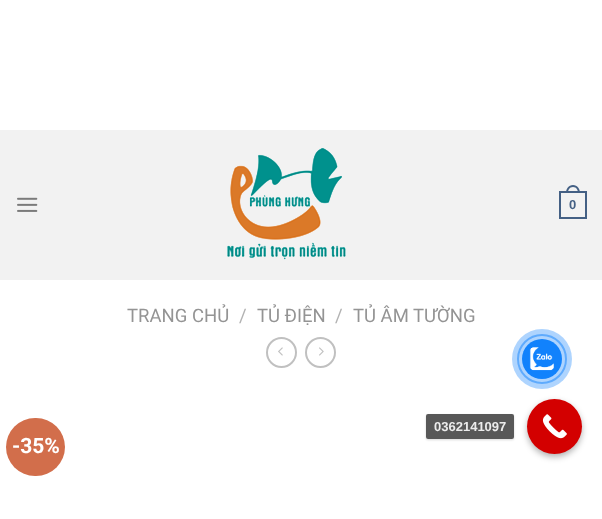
async function draw(canvas) {
	canvas.width = 602;
	canvas.height = 519;
	const c = canvas.getContext('2d');
	c.miterLimit = 4;
	c.fontKerning = 'normal';
	async function loadImage(src) {
		const img = new Image();
		img.src = src;
		await img.decode();
		return img;
	}

	c.fillStyle = '#fff';
	c.fillRect(0, 0, 602, 519);
	c.fillStyle = '#f2f2f2';
	c.fillRect(0, 130, 602, 150);
	c.drawImage(await loadImage('img1.png'), 17, 197, 21, 15);
	c.drawImage(await loadImage('img2.png'), 227, 148, 119, 112);
	c.strokeStyle = '#446084';
	c.lineWidth = 2;
	c.strokeRect(560, 192, 26, 26);
	c.fillStyle = '#446084';
	c.beginPath();
	c.moveTo(573, 185);
	c.bezierCurveTo(577.5, 185, 580, 189, 580, 193);
	c.lineTo(566, 193);
	c.bezierCurveTo(566, 189, 568.5, 185, 573, 185);
	c.closePath();
	c.moveTo(573, 187);
	c.bezierCurveTo(576.5, 187, 578, 190, 578, 193);
	c.lineTo(568, 193);
	c.bezierCurveTo(568, 190, 569.5, 187, 573, 187);
	c.closePath();
	c.fill('evenodd');
	c.font = 'bold 13px Liberation Sans';
	c.fillText('0', 569, 209);
	c.font = '18.5px Roboto';
	c.fillStyle = '#949494';
	c.fillText('TRANG CHỦ', 127, 322);
	c.fillStyle = '#b2b2b2';
	c.fillText('/', 239, 322);
	c.fillStyle = '#949494';
	c.fillText('TỦ ĐIỆN', 257, 322);
	c.fillStyle = '#b2b2b2';
	c.fillText('/', 335, 322);
	c.fillStyle = '#949494';
	c.fillText('TỦ ÂM TƯỜNG', 353, 322);
	c.beginPath();
	c.arc(281.5, 352.5, 14.5, 0, 2 * Math.PI);
	c.strokeStyle = '#c0c0c0';
	c.stroke();
	c.drawImage(await loadImage('img3.png'), 278, 347, 5, 9);
	c.beginPath();
	c.arc(320.5, 352.5, 14.5, 0, 2 * Math.PI);
	c.stroke();
	c.drawImage(await loadImage('img4.png'), 319, 347, 5, 9);
	c.fillStyle = '#d26e4b';
	c.beginPath();
	c.roundRect(6, 418, 59, 58, 29);
	c.fill();
	c.font = 'bold 21px Roboto';
	c.fillStyle = '#fff';
	c.fillText('-35%', 12, 453);
	c.beginPath();
	c.arc(542, 359, 24, 0, 2 * Math.PI);
	c.strokeStyle = '#88c1fe';
	c.stroke();
	c.fillStyle = '#1182fc57';
	c.beginPath();
	c.arc(542, 359, 30, 0, 2 * Math.PI);
	c.fill();
	c.fillStyle = '#1182fc';
	c.beginPath();
	c.arc(542, 359, 20, 0, 2 * Math.PI);
	c.fill();
	c.drawImage(await loadImage('img5.png'), 529, 347, 25, 24);
	c.fillStyle = '#0000004d';
	c.filter = 'blur(3px)';
	c.beginPath();
	c.roundRect(527, 402, 55, 55, 27.5);
	c.fill();
	c.filter = 'none';
	c.fillStyle = '#d30000';
	c.beginPath();
	c.arc(554.5, 426.5, 27.5, 0, 2 * Math.PI);
	c.fill();
	c.drawImage(await loadImage('img6.png'), 542, 414, 25, 25);
	c.save();
	c.beginPath();
	c.moveTo(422, 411);
	c.lineTo(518, 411);
	c.lineTo(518, 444);
	c.lineTo(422, 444);
	c.closePath();
	c.moveTo(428, 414);
	c.lineTo(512, 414);
	c.bezierCurveTo(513, 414, 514, 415, 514, 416);
	c.lineTo(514, 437);
	c.bezierCurveTo(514, 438, 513, 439, 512, 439);
	c.lineTo(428, 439);
	c.bezierCurveTo(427, 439, 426, 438, 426, 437);
	c.lineTo(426, 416);
	c.bezierCurveTo(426, 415, 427, 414, 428, 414);
	c.closePath();
	c.clip('evenodd');
	c.fillStyle = '#00000026';
	c.filter = 'blur(1px)';
	c.beginPath();
	c.roundRect(426, 415, 88, 25, 2);
	c.fill();
	c.filter = 'none';
	c.restore();
	c.fillStyle = '#464646e6';
	c.beginPath();
	c.roundRect(426, 414, 88, 25, 2);
	c.fill();
	c.font = 'bold 13px Liberation Sans';
	c.fillStyle = '#ececec';
	c.fillText('0362141097', 434, 431);
}

draw(document.querySelector('canvas'));
